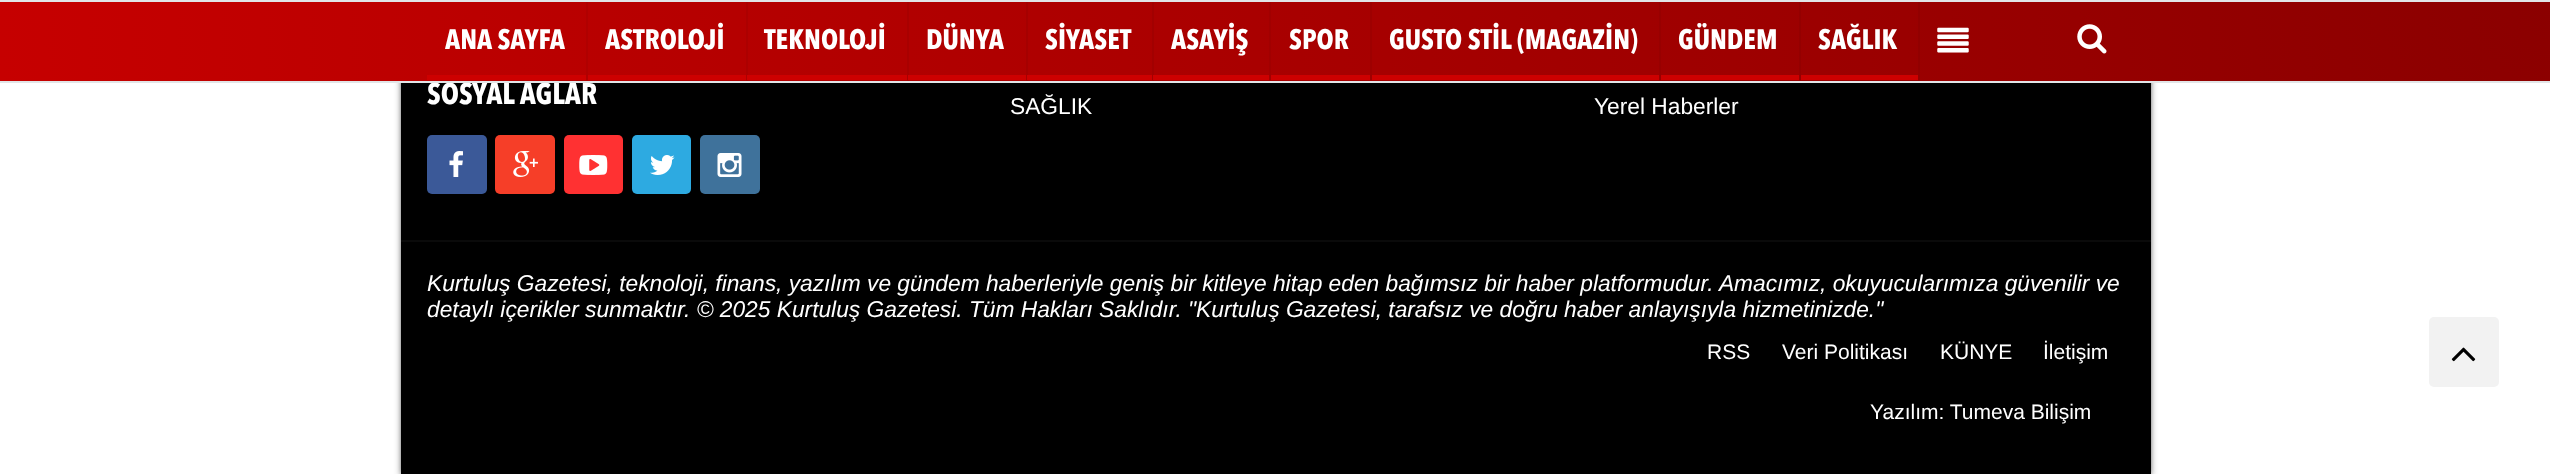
async function draw(canvas) {
	canvas.width = 2550;
	canvas.height = 474;
	const c = canvas.getContext('2d');
	c.miterLimit = 4;
	c.fontKerning = 'normal';
	async function loadImage(src) {
		const img = new Image();
		img.src = src;
		await img.decode();
		return img;
	}
	let gradient;

	c.fillStyle = '#fff';
	c.fillRect(0, 0, 2550, 474);
	c.fillStyle = '#000000b3';
	c.filter = 'blur(2.5px)';
	c.beginPath();
	c.rect(403, -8, 1746, 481);
	c.fill();
	c.filter = 'none';
	c.fillStyle = '#00000047';
	c.filter = 'blur(3.5px)';
	c.beginPath();
	c.rect(401, -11, 1750, 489);
	c.fill();
	c.filter = 'none';
	c.fillStyle = '#00000024';
	c.filter = 'blur(3.5px)';
	c.beginPath();
	c.rect(401, -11, 1750, 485);
	c.fill();
	c.filter = 'none';
	c.fillStyle = '#000';
	c.fillRect(401, 83, 1750, 391);
	c.font = 'bold 29.75px Avenir Next';
	c.fillStyle = '#fff';
	c.fillText('SOSYAL AĞLAR', 427, 104);
	gradient = c.createRadialGradient(2552, 1.8, 0, 2552, 1.8, 2553);
	gradient.addColorStop(0, '#8b0000');
	gradient.addColorStop(1, '#c60000');
	c.fillStyle = gradient;
	c.fillRect(0, 2, 2550, 79);
	for (const [x, y, w, h, color] of [
		[0, 0, 2550, 2, '#e2e5e7'],
		[0, 81, 2550, 2, '#e2e5e7'],
		[586, 2, 2, 79, '#b00000'],
		[427, 75, 159, 5, '#cd0000'],
	]) {
		c.fillStyle = color;
		c.fillRect(x, y, w, h);
	}
	c.font = 'bold 28px Avenir Next';
	c.fillStyle = '#fff';
	c.fillText('ANA SAYFA', 445, 49);
	c.fillStyle = '#ac0000';
	c.fillRect(746, 2, 2, 79);
	c.fillStyle = '#cd0000';
	c.fillRect(588, 75, 158, 5);
	c.fillStyle = '#fff';
	c.fillText('ASTROLOJİ', 605, 49);
	c.fillStyle = '#a80000';
	c.fillRect(907, 2, 2, 79);
	c.fillStyle = '#cd0000';
	c.fillRect(747, 75, 160, 5);
	c.fillStyle = '#fff';
	c.fillText('TEKNOLOJİ', 764, 49);
	c.fillStyle = '#a50000';
	c.fillRect(1026, 2, 2, 79);
	c.fillStyle = '#cd0000';
	c.fillRect(908, 75, 118, 5);
	c.fillStyle = '#fff';
	c.fillText('DÜNYA', 926, 49);
	c.fillStyle = '#a20000';
	c.fillRect(1152, 2, 2, 79);
	c.fillStyle = '#cd0000';
	c.fillRect(1027, 75, 125, 5);
	c.fillStyle = '#fff';
	c.fillText('SİYASET', 1045, 49);
	c.fillStyle = '#a10000';
	c.fillRect(1269, 2, 2, 79);
	c.fillStyle = '#cd0000';
	c.fillRect(1153, 75, 116, 5);
	c.fillStyle = '#fff';
	c.fillText('ASAYİŞ', 1171, 49);
	c.fillStyle = '#9e0000';
	c.fillRect(1370, 2, 2, 79);
	c.fillStyle = '#cd0000';
	c.fillRect(1271, 75, 99, 5);
	c.fillStyle = '#fff';
	c.fillText('SPOR', 1289, 49);
	c.fillStyle = '#980000';
	c.fillRect(1659, 2, 2, 79);
	c.fillStyle = '#cd0000';
	c.fillRect(1372, 75, 287, 5);
	c.fillStyle = '#fff';
	c.fillText('GUSTO STİL (MAGAZİN)', 1389, 49);
	c.fillStyle = '#940000';
	c.fillRect(1799, 2, 2, 79);
	c.fillStyle = '#cd0000';
	c.fillRect(1661, 75, 138, 5);
	c.fillStyle = '#fff';
	c.fillText('GÜNDEM', 1678, 49);
	c.fillStyle = '#920000';
	c.fillRect(1918, 2, 2, 79);
	c.fillStyle = '#cd0000';
	c.fillRect(1801, 75, 117, 5);
	c.fillStyle = '#fff';
	c.fillText('SAĞLIK', 1818, 49);
	c.drawImage(await loadImage('img1.png'), 1937, 27, 32, 26);
	c.drawImage(await loadImage('img2.png'), 2077, 24, 30, 30);
	c.fillStyle = '#3b5998';
	c.beginPath();
	c.roundRect(427, 135, 60, 59, 5);
	c.fill();
	c.drawImage(await loadImage('img3.png'), 449, 151, 14, 26);
	c.fillStyle = '#f63e28';
	c.beginPath();
	c.roundRect(495, 135, 60, 59, 5);
	c.fill();
	c.drawImage(await loadImage('img4.png'), 513, 151, 25, 26);
	c.fillStyle = '#ff3132';
	c.beginPath();
	c.roundRect(564, 135, 59, 59, 5);
	c.fill();
	c.drawImage(await loadImage('img5.png'), 579, 155, 29, 20);
	c.fillStyle = '#2daae1';
	c.beginPath();
	c.roundRect(632, 135, 59, 59, 5);
	c.fill();
	c.drawImage(await loadImage('img6.png'), 650, 155, 25, 20);
	c.fillStyle = '#3f729b';
	c.beginPath();
	c.roundRect(700, 135, 60, 59, 5);
	c.fill();
	c.drawImage(await loadImage('img7.png'), 717, 153, 25, 24);
	c.font = '22.75px Liberation Sans';
	c.fillStyle = '#fff';
	c.fillText('SAĞLIK', 1010, 114);
	c.fillText('Yerel Haberler', 1594, 114);
	c.fillStyle = '#0a0a0a';
	c.fillRect(401, 240, 1750, 2);
	c.font = 'italic 22.75px Liberation Sans';
	c.fillStyle = '#fff';
	c.fillText('Kurtuluş Gazetesi, teknoloji, finans, yazılım ve gündem haberleriyle geniş bir kitleye hitap eden bağımsız bir haber platformudur. Amacımız, okuyucularımıza güvenilir ve', 427, 291);
	c.fillText('detaylı içerikler sunmaktır. © 2025 Kurtuluş Gazetesi. Tüm Hakları Saklıdır. "Kurtuluş Gazetesi, tarafsız ve doğru haber anlayışıyla hizmetinizde."', 427, 317);
	c.font = '21px Liberation Sans';
	for (const [text, x, y] of [
		['RSS', 1707, 359],
		['Veri Politikası', 1782, 359],
		['KÜNYE', 1940, 359],
		['İletişim', 2043, 359],
		['Yazılım: Tumeva Bilişim', 1870, 419],
	]) {
		c.fillText(text, x, y);
	}
	c.fillStyle = '#f2f2f2';
	c.beginPath();
	c.roundRect(2429, 317, 70, 70, 5);
	c.fill();
	c.drawImage(await loadImage('img8.png'), 2451, 347, 25, 15);
}

draw(document.querySelector('canvas'));
